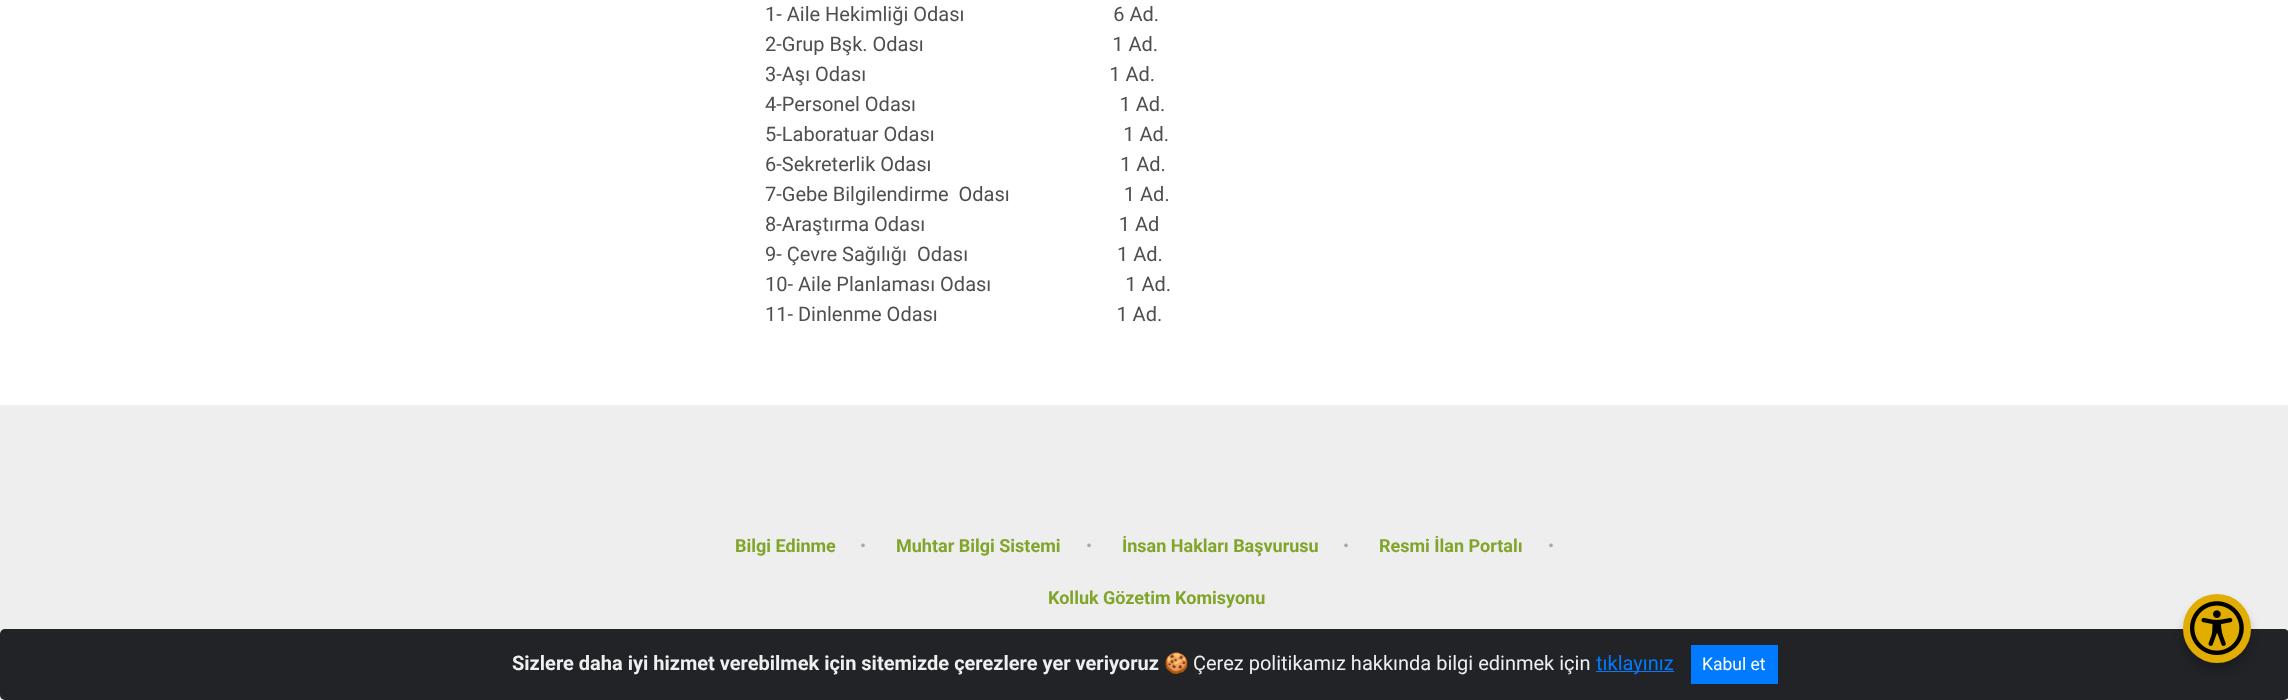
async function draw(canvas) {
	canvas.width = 2288;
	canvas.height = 700;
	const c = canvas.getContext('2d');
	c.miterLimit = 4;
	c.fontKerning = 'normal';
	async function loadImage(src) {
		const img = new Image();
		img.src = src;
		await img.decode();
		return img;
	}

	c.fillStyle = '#fff';
	c.fillRect(0, 0, 2288, 700);
	c.font = '20px Roboto';
	c.fillStyle = '#4f4f4f';
	for (const [text, x, y] of [
		['1- Aile Hekimliği Odası                              6 Ad.', 765, 21],
		['2-Grup Bşk. Odası                                      1 Ad.', 765, 51],
		['3-Aşı Odası                                                 1 Ad.', 765, 81],
		['4-Personel Odası                                         1 Ad.', 765, 111],
		['5-Laboratuar Odası                                      1 Ad.', 765, 141],
		['6-Sekreterlik Odası                                      1 Ad.', 765, 171],
		['7-Gebe Bilgilendirme  Odası                       1 Ad.', 765, 201],
		['8-Araştırma Odası                                       1 Ad', 765, 231],
		['9- Çevre Sağılığı  Odası                              1 Ad.', 765, 261],
		['10- Aile Planlaması Odası                           1 Ad.', 765, 291],
		['11- Dinlenme Odası                                    1 Ad.', 765, 321],
	]) {
		c.fillText(text, x, y);
	}
	c.fillStyle = '#eee';
	c.fillRect(0, 405, 2288, 295);
	c.font = 'bold 18px Roboto';
	c.fillStyle = '#81a52a';
	c.fillText('Bilgi Edinme', 735, 552);
	c.font = '18px Roboto';
	c.fillStyle = '#aaa';
	c.fillText('•', 860, 552);
	c.font = 'bold 18px Roboto';
	c.fillStyle = '#81a52a';
	c.fillText('Muhtar Bilgi Sistemi', 896, 552);
	c.font = '18px Roboto';
	c.fillStyle = '#aaa';
	c.fillText('•', 1086, 552);
	c.font = 'bold 18px Roboto';
	c.fillStyle = '#81a52a';
	c.fillText('İnsan Hakları Başvurusu', 1122, 552);
	c.font = '18px Roboto';
	c.fillStyle = '#aaa';
	c.fillText('•', 1343, 552);
	c.font = 'bold 18px Roboto';
	c.fillStyle = '#81a52a';
	c.fillText('Resmi İlan Portalı', 1379, 552);
	c.font = '18px Roboto';
	c.fillStyle = '#aaa';
	c.fillText('•', 1548, 552);
	c.font = 'bold 18px Roboto';
	c.fillStyle = '#81a52a';
	c.fillText('Kolluk Gözetim Komisyonu', 1048, 604);
	c.fillStyle = '#212327';
	c.beginPath();
	c.roundRect(0, 629, 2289, 71, 5);
	c.fill();
	c.font = 'bold 20px Roboto';
	c.fillStyle = '#ecf0f1';
	c.fillText('Sizlere daha iyi hizmet verebilmek için sitemizde çerezlere yer veriyoruz', 512, 670);
	c.font = '20px Noto Color Emoji';
	c.fillText('🍪', 1164, 670);
	c.font = '20px Roboto';
	c.fillText('Çerez politikamız hakkında bilgi edinmek için', 1193, 670);
	c.fillStyle = '#007bff';
	c.fillRect(1596, 671, 78, 1);
	c.fillText('tıklayınız', 1596, 670);
	c.fillRect(1691, 645, 87, 39);
	c.font = '17.5px Roboto';
	c.fillStyle = '#fff';
	c.fillText('Kabul et', 1702, 670);
	c.fillStyle = '#00000033';
	c.filter = 'blur(5px)';
	c.beginPath();
	c.roundRect(2183, 601, 68, 69, 34);
	c.fill();
	c.filter = 'none';
	c.fillStyle = '#e1ad01';
	c.beginPath();
	c.roundRect(2183, 594, 68, 69, 34);
	c.fill();
	c.drawImage(await loadImage('img1.png'), 2190, 601, 54, 54);
}

draw(document.querySelector('canvas'));
